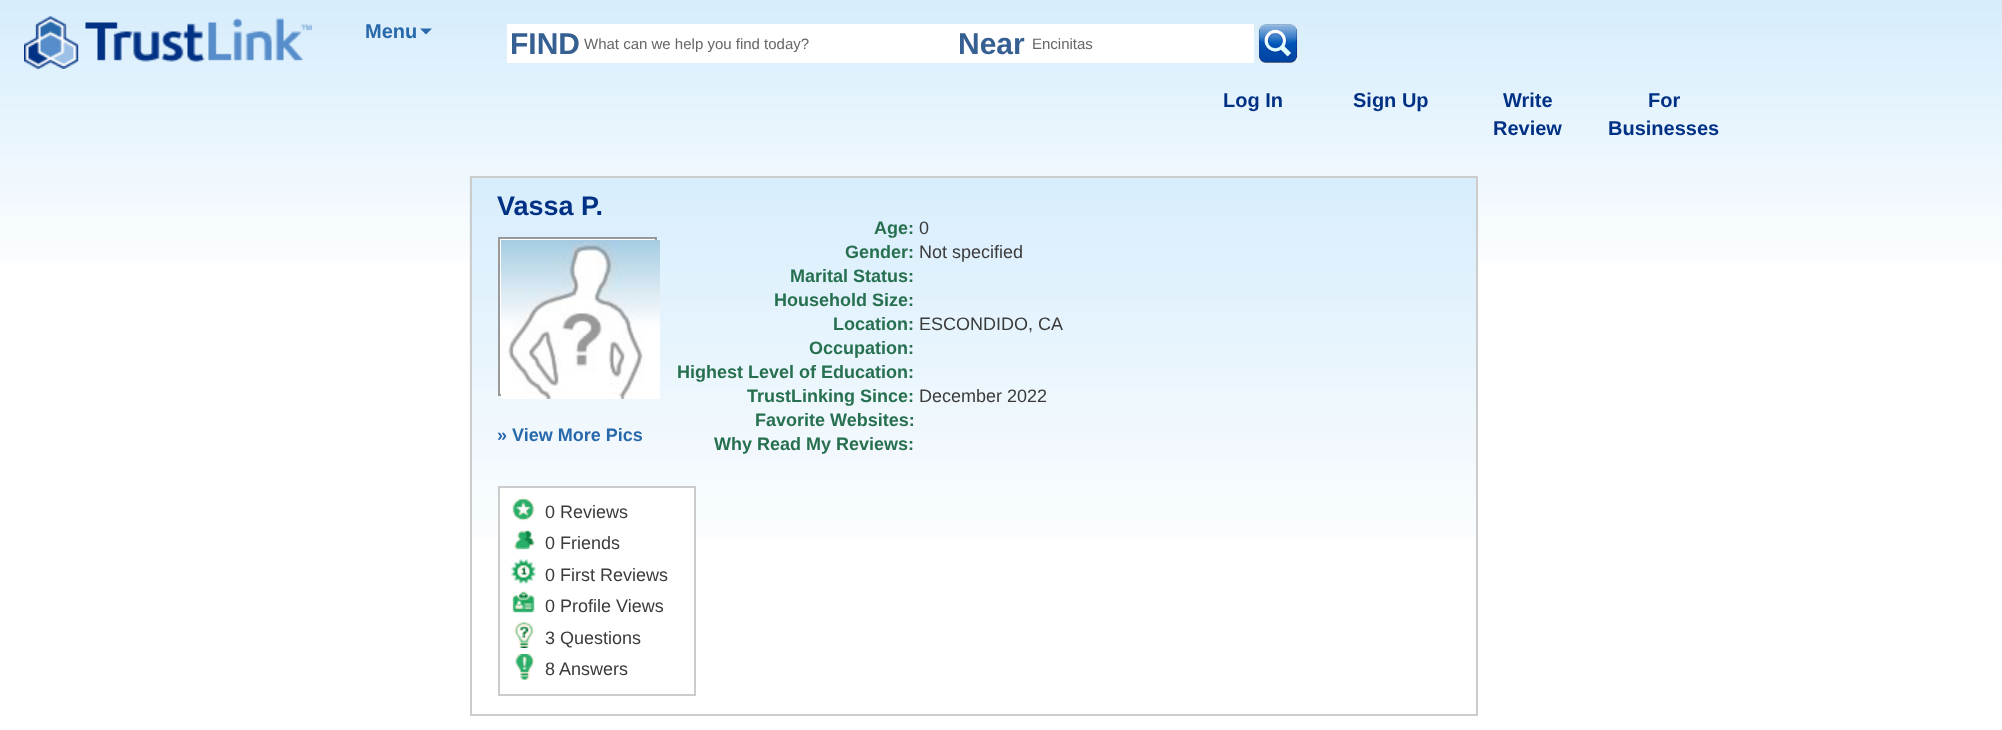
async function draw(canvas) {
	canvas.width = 2002;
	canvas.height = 730;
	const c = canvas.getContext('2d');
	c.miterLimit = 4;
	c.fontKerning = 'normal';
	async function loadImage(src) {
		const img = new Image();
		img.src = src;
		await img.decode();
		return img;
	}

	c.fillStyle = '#fff';
	c.fillRect(0, 0, 2002, 730);
	c.drawImage(await loadImage('img1.png'), 0, 0, 2002, 263);
	c.drawImage(await loadImage('img2.png'), 24, 16, 288, 53);
	c.font = 'bold 20px Liberation Sans';
	c.fillStyle = '#2769aa';
	c.fillText('Menu', 365, 38);
	c.beginPath();
	c.moveTo(420, 28.5);
	c.lineTo(432, 28.5);
	c.lineTo(426, 34.5);
	c.closePath();
	c.fill();
	c.fillStyle = '#fff';
	c.fillRect(507, 24, 747, 39);
	c.font = 'bold 30px Liberation Sans';
	c.fillStyle = '#376092';
	c.fillText('FIND', 510, 54);
	c.font = '15px Liberation Sans';
	c.fillStyle = '#666';
	c.fillText('What can we help you find today?', 584, 49);
	c.font = 'bold 30px Liberation Sans';
	c.fillStyle = '#376092';
	c.fillText('Near', 958, 54);
	c.font = '15px Liberation Sans';
	c.fillStyle = '#666';
	c.fillText('Encinitas', 1032, 49);
	c.drawImage(await loadImage('img3.png'), 1258, 24, 40, 39);
	c.font = 'bold 20px Liberation Sans';
	c.fillStyle = '#003184';
	for (const [text, x, y] of [
		['Log In', 1223, 107],
		['Sign Up', 1353, 107],
		['Write', 1503, 107],
		['Review', 1493, 135],
		['For', 1648, 107],
		['Businesses', 1608, 135],
	]) {
		c.fillText(text, x, y);
	}
	c.drawImage(await loadImage('img4.png'), 469, 177, 1007, 360);
	c.strokeStyle = '#ccc';
	c.lineWidth = 2;
	c.strokeRect(471, 177, 1006, 538);
	c.font = 'bold 27px Liberation Sans';
	c.fillText('Vassa P.', 497, 215);
	c.fillStyle = '#fff';
	c.beginPath();
	c.rect(499, 238, 157, 157);
	c.fill();
	c.strokeStyle = '#999';
	c.stroke();
	c.drawImage(await loadImage('img5.png'), 501, 240, 159, 159);
	c.font = 'bold 18px Liberation Sans';
	c.fillStyle = '#2769aa';
	c.fillText('» View More Pics', 497, 441);
	c.fillStyle = '#267050';
	c.fillText('Age:', 874, 234);
	c.font = '18px Liberation Sans';
	c.fillStyle = '#3b3b3b';
	c.fillText('0', 919, 234);
	c.font = 'bold 18px Liberation Sans';
	c.fillStyle = '#267050';
	c.fillText('Gender:', 845, 258);
	c.font = '18px Liberation Sans';
	c.fillStyle = '#3b3b3b';
	c.fillText('Not specified', 919, 258);
	c.font = 'bold 18px Liberation Sans';
	c.fillStyle = '#267050';
	for (const [text, x, y] of [
		['Marital Status:', 790, 282],
		['Household Size:', 774, 306],
		['Location:', 833, 330],
	]) {
		c.fillText(text, x, y);
	}
	c.font = '18px Liberation Sans';
	c.fillStyle = '#3b3b3b';
	c.fillText('ESCONDIDO, CA', 919, 330);
	c.font = 'bold 18px Liberation Sans';
	c.fillStyle = '#267050';
	for (const [text, x, y] of [
		['Occupation:', 809, 354],
		['Highest Level of Education:', 677, 378],
		['TrustLinking Since:', 747, 402],
	]) {
		c.fillText(text, x, y);
	}
	c.font = '18px Liberation Sans';
	c.fillStyle = '#3b3b3b';
	c.fillText('December 2022', 919, 402);
	c.font = 'bold 18px Liberation Sans';
	c.fillStyle = '#267050';
	c.fillText('Favorite Websites:', 755, 426);
	c.fillText('Why Read My Reviews:', 714, 450);
	c.fillStyle = '#fff';
	c.fillRect(500, 488, 194, 49);
	c.strokeStyle = '#ccc';
	c.strokeRect(499, 487, 196, 208);
	c.drawImage(await loadImage('img6.png'), 512, 497, 23, 24);
	c.font = '18px Liberation Sans';
	c.fillStyle = '#3b3b3b';
	c.fillText('0 Reviews', 545, 518);
	c.drawImage(await loadImage('img7.png'), 514, 530, 21, 20);
	c.fillText('0 Friends', 545, 549);
	c.drawImage(await loadImage('img8.png'), 511, 559, 25, 25);
	c.fillText('0 First Reviews', 545, 581);
	c.drawImage(await loadImage('img9.png'), 511, 591, 24, 22);
	c.fillText('0 Profile Views', 545, 612);
	c.drawImage(await loadImage('img10.png'), 514, 622, 21, 26);
	c.fillText('3 Questions', 545, 644);
	c.drawImage(await loadImage('img11.png'), 514, 654, 21, 26);
	c.fillText('8 Answers', 545, 675);
}

draw(document.querySelector('canvas'));
